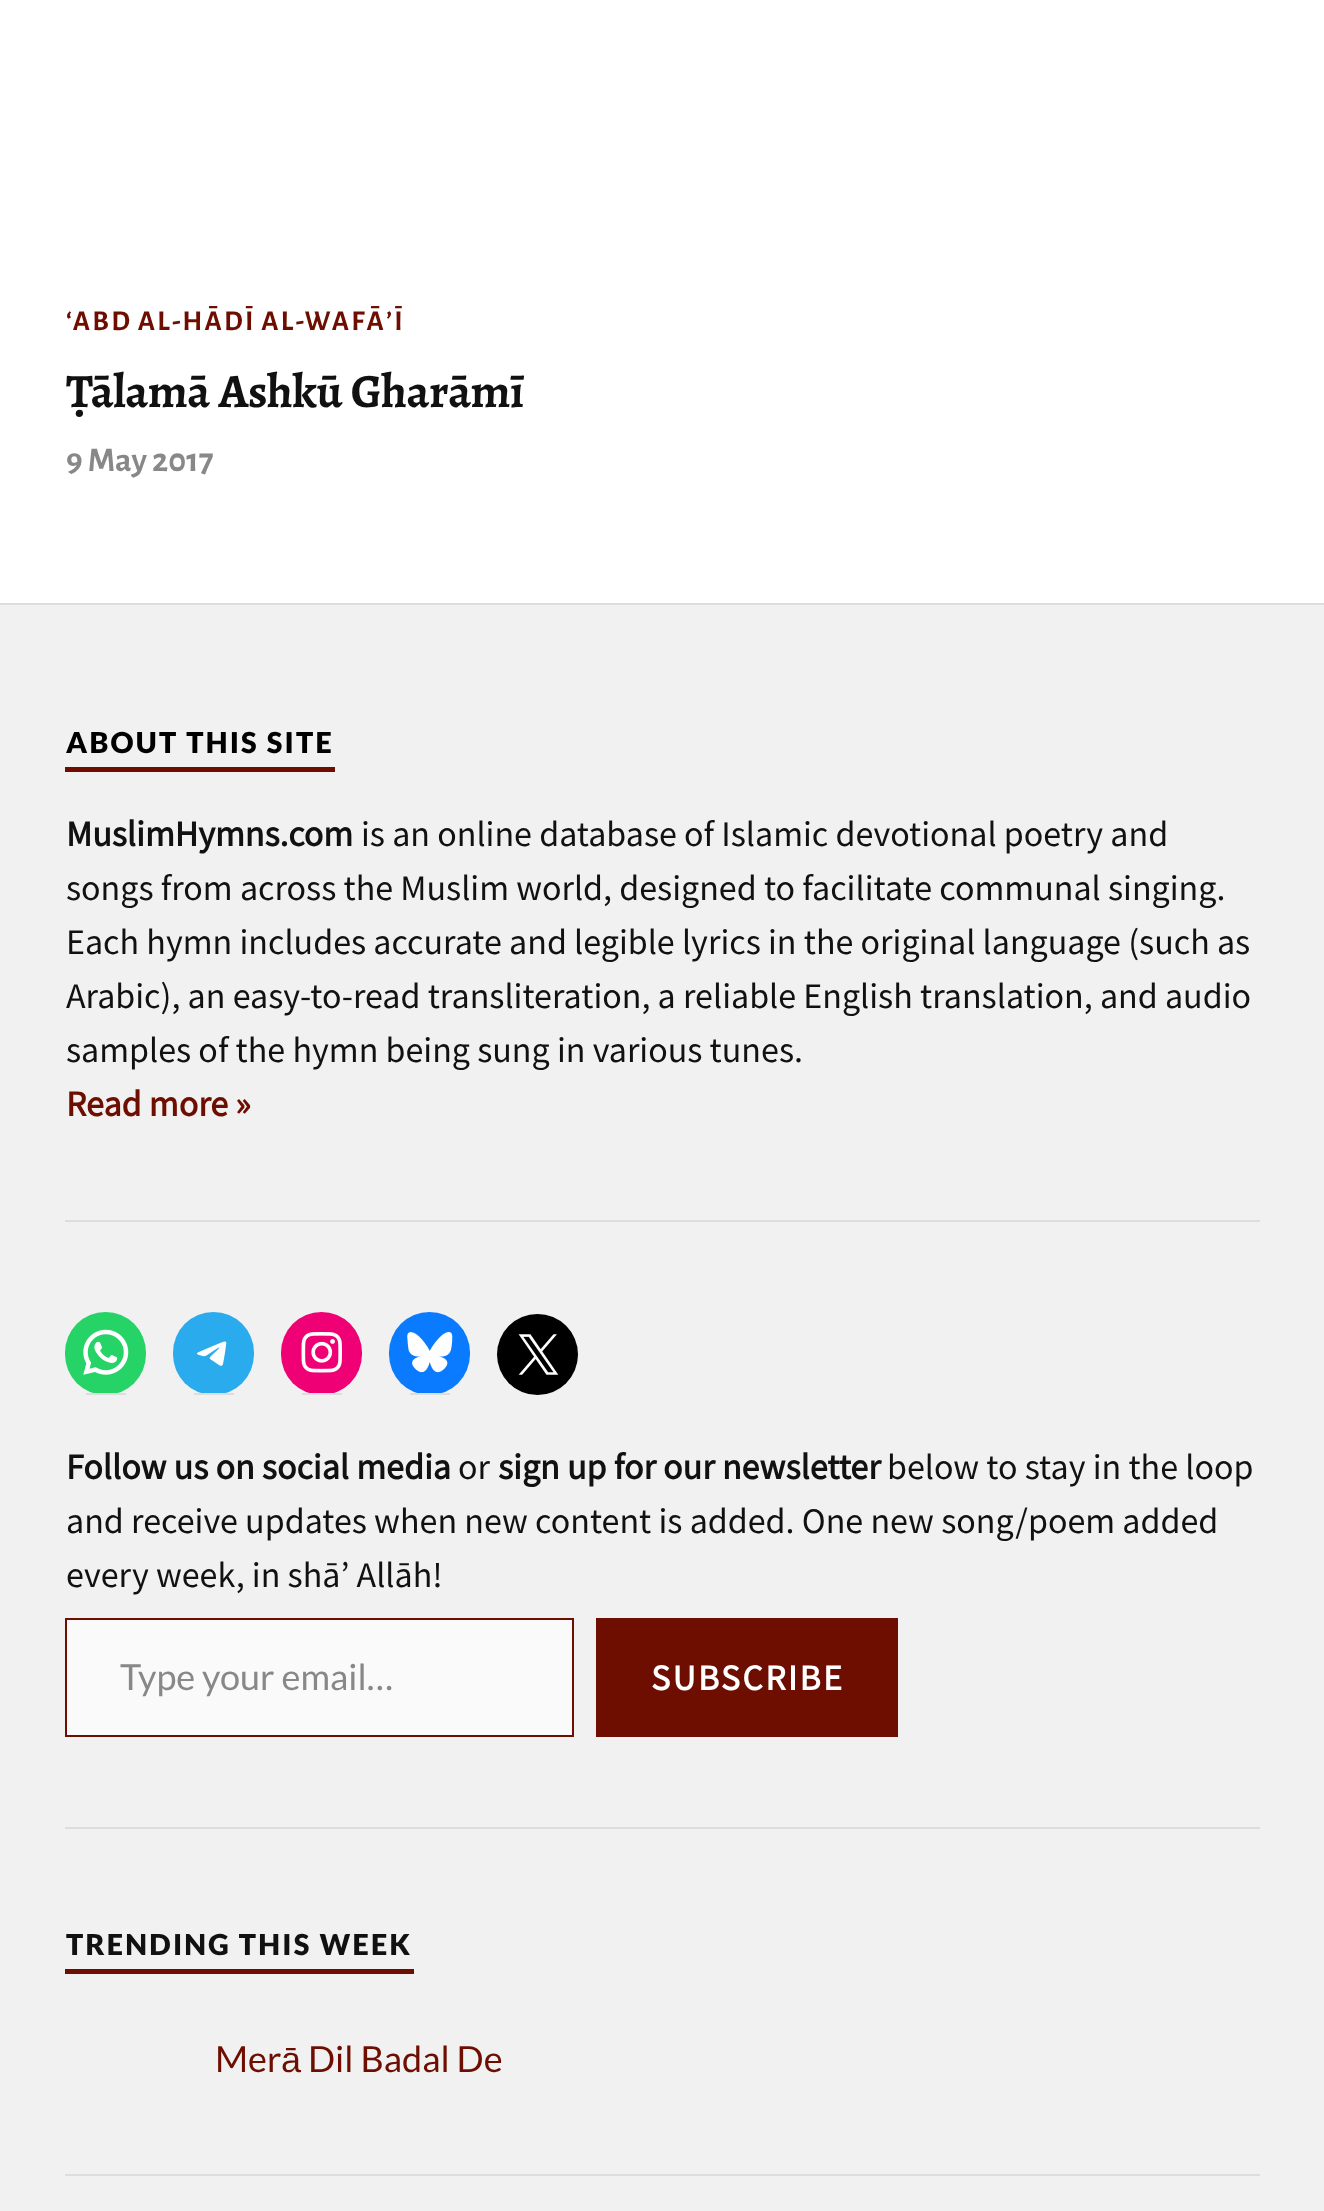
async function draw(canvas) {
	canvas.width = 1324;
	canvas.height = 2211;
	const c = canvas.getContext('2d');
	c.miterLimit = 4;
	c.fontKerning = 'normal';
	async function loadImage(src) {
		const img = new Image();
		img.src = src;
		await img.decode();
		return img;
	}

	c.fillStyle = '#fff';
	c.fillRect(0, 0, 1324, 2211);
	c.letterSpacing = '2.25px';
	c.wordSpacing = '-1px';
	c.font = 'bold 28.75px Alegreya Sans';
	c.fillStyle = '#6d0e00';
	c.fillText('‘ABD AL-HĀDĪ AL-WAFĀ’Ī', 66, 330);
	c.letterSpacing = '-0.5px';
	c.wordSpacing = '1px';
	c.font = 'bold 47.75px Alegreya';
	c.fillStyle = '#111';
	c.fillText('Ṭālamā Ashkū Gharāmī', 66, 407);
	c.letterSpacing = '0px';
	c.wordSpacing = '0px';
	c.font = 'bold 34.5px Alegreya Sans';
	c.fillStyle = '#888';
	c.fillText('9 May 2017', 66, 471);
	for (const [x, y, w, h, color] of [
		[0, 605, 1324, 1606, '#f1f1f1'],
		[0, 603, 1324, 2, '#ddd'],
		[65, 767, 270, 5, '#6d0e00'],
	]) {
		c.fillStyle = color;
		c.fillRect(x, y, w, h);
	}
	c.letterSpacing = '2.25px';
	c.font = '900 28.75px Lato';
	c.fillStyle = '#000';
	c.fillText('ABOUT THIS SITE', 66, 753);
	c.letterSpacing = '0px';
	c.font = 'bold 36px Source Sans Pro';
	c.fillStyle = '#111';
	c.fillText('MuslimHymns.com', 66, 846);
	c.font = '36px Source Sans Pro';
	for (const [text, x, y] of [
		['is an online database of Islamic devotional poetry and', 361, 846],
		['songs from across the Muslim world, designed to facilitate communal singing.', 66, 900],
		['Each hymn includes accurate and legible lyrics in the original language (such as', 66, 954],
		['Arabic), an easy-to-read transliteration, a reliable English translation, and audio', 66, 1008],
		['samples of the hymn being sung in various tunes.', 66, 1062],
	]) {
		c.fillText(text, x, y);
	}
	c.font = 'bold 36px Source Sans Pro';
	c.fillStyle = '#6d0e00';
	c.fillText('Read more »', 66, 1116);
	c.fillStyle = '#ddd';
	c.fillRect(65, 1220, 1195, 2);
	c.fillStyle = '#25d366';
	c.beginPath();
	c.roundRect(65, 1312, 81, 83, 40.5);
	c.fill();
	c.fillStyle = '#ddd';
	c.fillRect(86, 1393, 40, 2);
	c.drawImage(await loadImage('img1.png'), 83, 1329, 46, 46);
	c.fillStyle = '#2aabee';
	c.beginPath();
	c.roundRect(173, 1312, 81, 83, 40.5);
	c.fill();
	c.fillStyle = '#ddd';
	c.fillRect(194, 1393, 40, 2);
	c.drawImage(await loadImage('img2.png'), 197, 1341, 30, 25);
	c.fillStyle = '#f00075';
	c.beginPath();
	c.roundRect(281, 1312, 81, 83, 40.5);
	c.fill();
	c.fillStyle = '#ddd';
	c.fillRect(302, 1393, 40, 2);
	c.drawImage(await loadImage('img3.png'), 301, 1332, 41, 41);
	c.fillStyle = '#0a7aff';
	c.beginPath();
	c.roundRect(389, 1312, 81, 83, 40.5);
	c.fill();
	c.fillStyle = '#ddd';
	c.fillRect(410, 1393, 40, 2);
	c.drawImage(await loadImage('img4.png'), 407, 1332, 46, 41);
	c.fillStyle = '#000';
	c.beginPath();
	c.arc(537.5, 1354.5, 40.5, 0, 2 * Math.PI);
	c.fill();
	c.drawImage(await loadImage('img5.png'), 518, 1334, 41, 41);
	c.fillStyle = '#111';
	c.fillText('Follow us on social media', 66, 1479);
	c.font = '36px Source Sans Pro';
	c.fillText('or', 458, 1479);
	c.font = 'bold 36px Source Sans Pro';
	c.fillText('sign up for our newsletter', 498, 1479);
	c.font = '36px Source Sans Pro';
	for (const [text, x, y] of [
		['below to stay in the loop', 887, 1479],
		['and receive updates when new content is added. One new song/poem added', 66, 1533],
		['every week, in shā’ Allāh!', 66, 1587],
	]) {
		c.fillText(text, x, y);
	}
	c.fillStyle = '#fafafa';
	c.beginPath();
	c.rect(66, 1619, 507, 117);
	c.fill();
	c.strokeStyle = '#6d0e00';
	c.lineWidth = 2;
	c.stroke();
	c.font = '36px Lato';
	c.fillStyle = '#888';
	c.fillText('Type your email…', 120, 1690);
	c.fillStyle = '#6d0e00';
	c.fillRect(596, 1618, 302, 119);
	c.letterSpacing = '2.25px';
	c.font = 'bold 36px Source Sans Pro';
	c.fillStyle = '#fff';
	c.fillText('SUBSCRIBE', 651, 1690);
	c.fillStyle = '#ddd';
	c.fillRect(65, 1827, 1195, 2);
	c.fillStyle = '#6d0e00';
	c.fillRect(65, 1969, 349, 5);
	c.font = '900 28.75px Lato';
	c.fillStyle = '#111';
	c.fillText('TRENDING THIS WEEK', 66, 1955);
	c.fillStyle = '#ddd';
	c.fillRect(65, 2174, 1195, 2);
	c.letterSpacing = '0px';
	c.font = '36px Lato';
	c.fillStyle = '#6d0e00';
	c.fillText('Mer', 215, 2072);
	c.font = '36px Liberation Sans';
	c.fillText('ā', 281, 2072);
	c.font = '36px Lato';
	c.fillText('Dil Badal De', 308, 2072);
}

draw(document.querySelector('canvas'));
